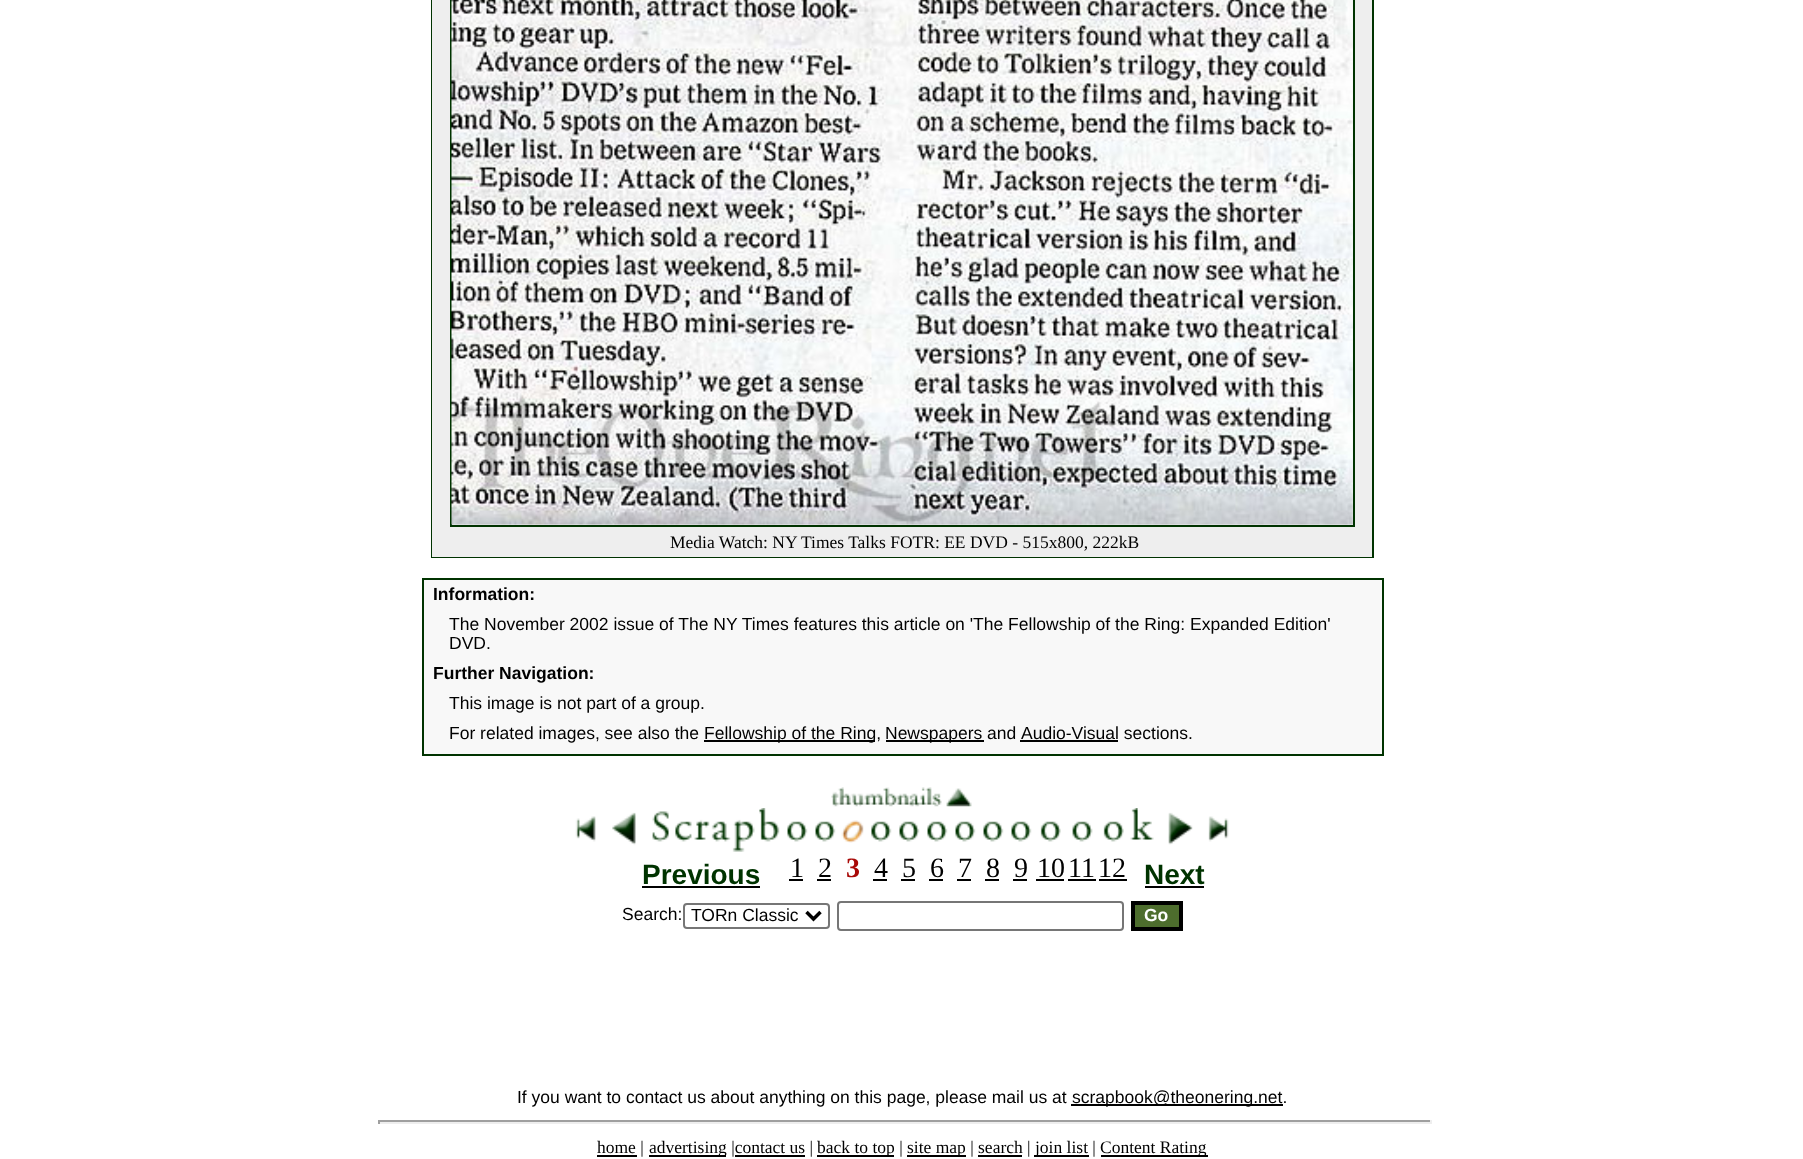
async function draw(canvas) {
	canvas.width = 1803;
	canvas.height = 1159;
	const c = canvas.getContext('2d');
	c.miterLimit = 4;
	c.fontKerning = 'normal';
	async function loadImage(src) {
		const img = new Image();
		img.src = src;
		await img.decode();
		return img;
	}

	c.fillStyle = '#fff';
	c.fillRect(0, 0, 1803, 1159);
	c.strokeStyle = '#030';
	c.lineWidth = 2;
	c.strokeRect(432, -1, 941, 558);
	c.fillStyle = '#eee';
	c.fillRect(432, 0, 940, 557);
	c.strokeRect(451, -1, 903, 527);
	c.drawImage(await loadImage('img1.png'), 451, 0, 902, 525);
	c.font = '17.5px Liberation Serif';
	c.fillStyle = '#000';
	c.fillText('Media Watch: NY Times Talks FOTR: EE DVD - 515x800, 222kB', 670, 548);
	c.fillStyle = '#f8f8f8';
	c.beginPath();
	c.rect(423, 579, 960, 176);
	c.fill();
	c.stroke();
	c.font = 'bold 17.5px Liberation Sans';
	c.fillStyle = '#000';
	c.fillText('Information:', 433, 600);
	c.font = '17.5px Liberation Sans';
	c.fillText('The November 2002 issue of The NY Times features this article on \'The Fellowship of the Ring: Expanded Edition\'', 449, 630);
	c.fillText('DVD.', 449, 649);
	c.font = 'bold 17.5px Liberation Sans';
	c.fillText('Further Navigation:', 433, 679);
	c.font = '17.5px Liberation Sans';
	c.fillText('This image is not part of a group.', 449, 709);
	c.fillText('For related images, see also the', 449, 739);
	c.fillRect(704, 740, 171, 2);
	c.fillText('Fellowship of the Ring,', 704, 739);
	c.fillRect(886, 740, 98, 2);
	for (const [text, x, y] of [
		['Newspapers', 885, 739],
		['and', 987, 739],
		['Audio-Visual sections.', 1021, 739],
	]) {
		c.fillText(text, x, y);
	}
	c.fillRect(1020, 740, 98, 2);
	c.drawImage(await loadImage('img2.png'), 831, 787, 141, 20);
	c.drawImage(await loadImage('img3.png'), 575, 816, 21, 26);
	c.drawImage(await loadImage('img4.png'), 612, 808, 168, 44);
	c.font = 'bold 28px Liberation Sans';
	c.fillStyle = '#030';
	c.fillText('Previous', 642, 884);
	c.fillStyle = '#000';
	c.fillRect(642, 886, 118, 2);
	c.drawImage(await loadImage('img5.png'), 787, 821, 21, 21);
	c.font = '28px Liberation Serif';
	c.fillText('1', 790, 877);
	c.fillRect(789, 879, 14, 2);
	c.drawImage(await loadImage('img6.png'), 815, 821, 21, 21);
	c.fillText('2', 818, 877);
	c.fillRect(817, 879, 14, 2);
	c.drawImage(await loadImage('img7.png'), 841, 820, 23, 23);
	c.font = 'bold 28px Liberation Serif';
	c.fillStyle = '#a90a08';
	c.fillText('3', 846, 877);
	c.drawImage(await loadImage('img8.png'), 871, 821, 21, 21);
	c.font = '28px Liberation Serif';
	c.fillStyle = '#000';
	c.fillText('4', 874, 877);
	c.fillRect(873, 879, 14, 2);
	c.drawImage(await loadImage('img6.png'), 899, 821, 21, 21);
	c.fillText('5', 902, 877);
	c.fillRect(901, 879, 14, 2);
	c.drawImage(await loadImage('img6.png'), 927, 821, 21, 21);
	c.fillText('6', 930, 877);
	c.fillRect(929, 879, 14, 2);
	c.drawImage(await loadImage('img6.png'), 955, 821, 21, 21);
	c.fillText('7', 958, 877);
	c.fillRect(957, 879, 14, 2);
	c.drawImage(await loadImage('img6.png'), 983, 821, 21, 21);
	c.fillText('8', 986, 877);
	c.fillRect(985, 879, 14, 2);
	c.drawImage(await loadImage('img5.png'), 1011, 821, 21, 21);
	c.fillText('9', 1014, 877);
	c.fillRect(1013, 879, 14, 2);
	c.drawImage(await loadImage('img9.png'), 1040, 821, 21, 21);
	c.fillText('10', 1037, 877);
	c.fillRect(1036, 879, 28, 2);
	c.drawImage(await loadImage('img10.png'), 1072, 821, 21, 21);
	c.fillText('11', 1068, 877);
	c.fillRect(1068, 879, 28, 2);
	c.drawImage(await loadImage('img11.png'), 1103, 821, 21, 21);
	c.fillText('12', 1098, 877);
	c.fillRect(1099, 879, 28, 2);
	c.drawImage(await loadImage('img12.png'), 1130, 808, 63, 37);
	c.drawImage(await loadImage('img13.png'), 1208, 816, 21, 26);
	c.font = 'bold 28px Liberation Sans';
	c.fillStyle = '#030';
	c.fillText('Next', 1144, 884);
	c.fillStyle = '#000';
	c.fillRect(1145, 886, 59, 2);
	c.font = '17.5px Liberation Sans';
	c.fillText('Search:', 622, 920);
	c.beginPath();
	c.roundRect(684, 904, 145, 24, 3);
	c.strokeStyle = '#767676';
	c.stroke();
	c.beginPath();
	c.moveTo(806.5, 912);
	c.lineTo(813.5, 919);
	c.lineTo(820.5, 912);
	c.strokeStyle = '#000';
	c.lineWidth = 3.5;
	c.stroke();
	c.fillText('TORn Classic', 691, 921);
	c.beginPath();
	c.roundRect(838, 902, 285, 28, 3);
	c.strokeStyle = '#767676';
	c.lineWidth = 2;
	c.stroke();
	c.fillStyle = '#4d6d2d';
	c.beginPath();
	c.rect(1133, 903, 48, 26);
	c.fill();
	c.strokeStyle = '#000';
	c.lineWidth = 4;
	c.stroke();
	c.font = 'bold 17.5px Liberation Sans';
	c.fillStyle = '#fff';
	c.fillText('Go', 1144, 921);
	c.font = '17.5px Liberation Sans';
	c.fillStyle = '#000';
	c.fillText('If you want to contact us about anything on this page, please mail us at', 517, 1103);
	c.fillRect(1071, 1104, 212, 2);
	c.fillText('scrapbook@theonering.net.', 1072, 1103);
	for (const [x, y, w, h, color] of [
		[378, 1120, 1054, 2, '#9f9f9f'],
		[1430, 1120, 2, 4, '#eee'],
		[378, 1122, 1054, 2, '#eee'],
		[378, 1120, 2, 4, '#9f9f9f'],
		[597, 1155, 40, 2, '#000'],
	]) {
		c.fillStyle = color;
		c.fillRect(x, y, w, h);
	}
	c.font = '17.5px Liberation Serif';
	c.fillText('home |', 597, 1153);
	c.fillRect(649, 1155, 77, 2);
	c.fillText('advertising |contact us |', 649, 1153);
	c.fillRect(735, 1155, 70, 2);
	c.fillRect(817, 1155, 77, 2);
	c.fillText('back to top |', 817, 1153);
	c.fillRect(907, 1155, 59, 2);
	c.fillText('site map | search |', 907, 1153);
	c.fillRect(978, 1155, 44, 2);
	c.fillRect(1034, 1155, 55, 2);
	c.fillText('join list |', 1035, 1153);
	c.fillRect(1101, 1155, 107, 2);
	c.fillText('Content Rating', 1100, 1153);
}

draw(document.querySelector('canvas'));
